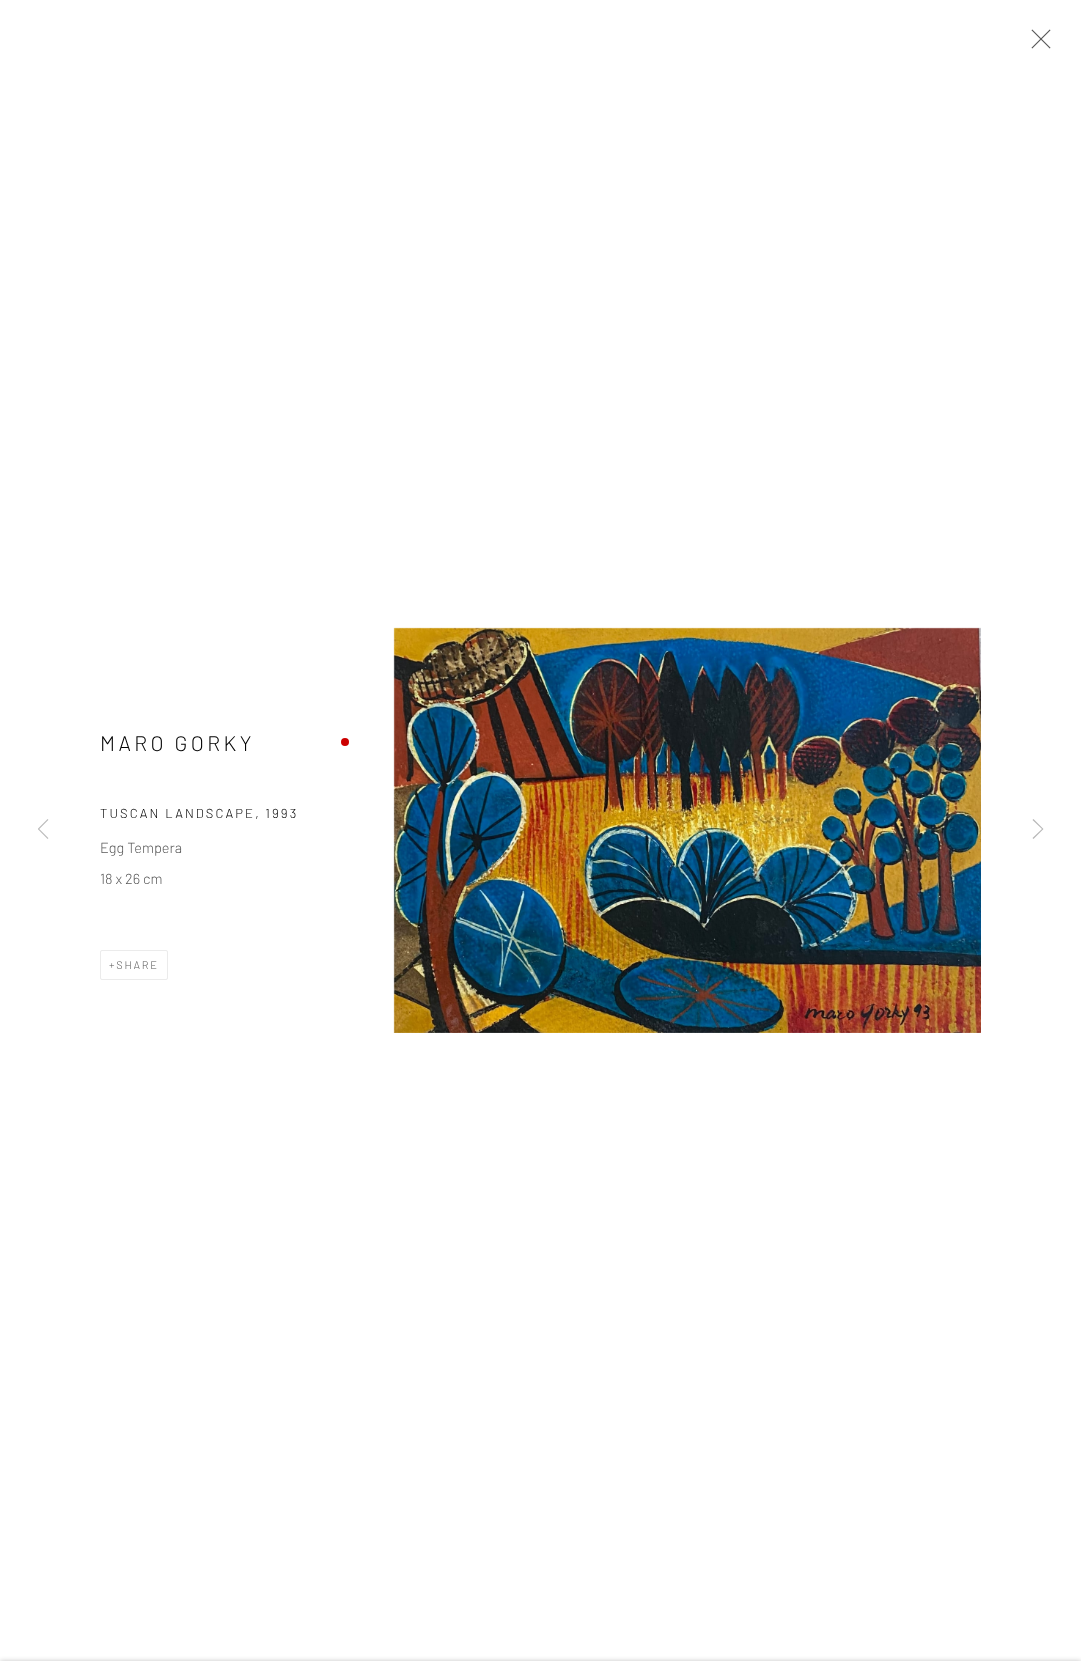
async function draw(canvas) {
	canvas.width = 1081;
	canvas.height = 1661;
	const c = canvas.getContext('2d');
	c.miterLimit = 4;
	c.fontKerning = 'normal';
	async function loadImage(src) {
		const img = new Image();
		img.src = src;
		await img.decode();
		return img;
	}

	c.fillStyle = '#fff';
	c.fillRect(0, 0, 1081, 1661);
	c.drawImage(await loadImage('img1.png'), 1031, 29, 20, 20);
	c.letterSpacing = '3.4px';
	c.font = '300 21px Barlow';
	c.fillStyle = '#010101';
	c.fillText('MARO GORKY', 100, 751);
	c.fillStyle = '#c00';
	c.beginPath();
	c.arc(345, 742, 4, 0, 2 * Math.PI);
	c.fill();
	c.letterSpacing = '2.1px';
	c.font = '300 13px Barlow';
	c.fillStyle = '#010101';
	c.fillText('TUSCAN LANDSCAPE, 1993', 100, 818);
	c.letterSpacing = '0px';
	c.font = '300 14.5px Barlow';
	c.fillStyle = '#585858';
	c.fillText('Egg Tempera', 100, 853);
	c.fillText('18 x 26 cm', 100, 884);
	c.beginPath();
	c.roundRect(100.5, 950.5, 67, 29, 1.5);
	c.strokeStyle = '#ebebeb';
	c.stroke();
	c.letterSpacing = '1.75px';
	c.font = '300 11px Barlow';
	c.fillText('+SHARE', 109, 969);
	c.drawImage(await loadImage('img2.png'), 393, 627, 588, 406);
	c.drawImage(await loadImage('img3.png'), 38, 819, 11, 20);
	c.fillStyle = '#b9b9b9';
	c.beginPath();
	c.moveTo(1043.5, 829);
	c.lineTo(1033.5, 819);
	c.lineTo(1032.5, 820);
	c.lineTo(1042, 829);
	c.lineTo(1032.5, 838);
	c.lineTo(1033.5, 839);
	c.closePath();
	c.fill();
	c.fillStyle = '#0000003b';
	c.filter = 'blur(2.5px)';
	c.beginPath();
	c.rect(0, 1661, 1081, 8);
	c.fill();
	c.filter = 'none';
}

draw(document.querySelector('canvas'));
